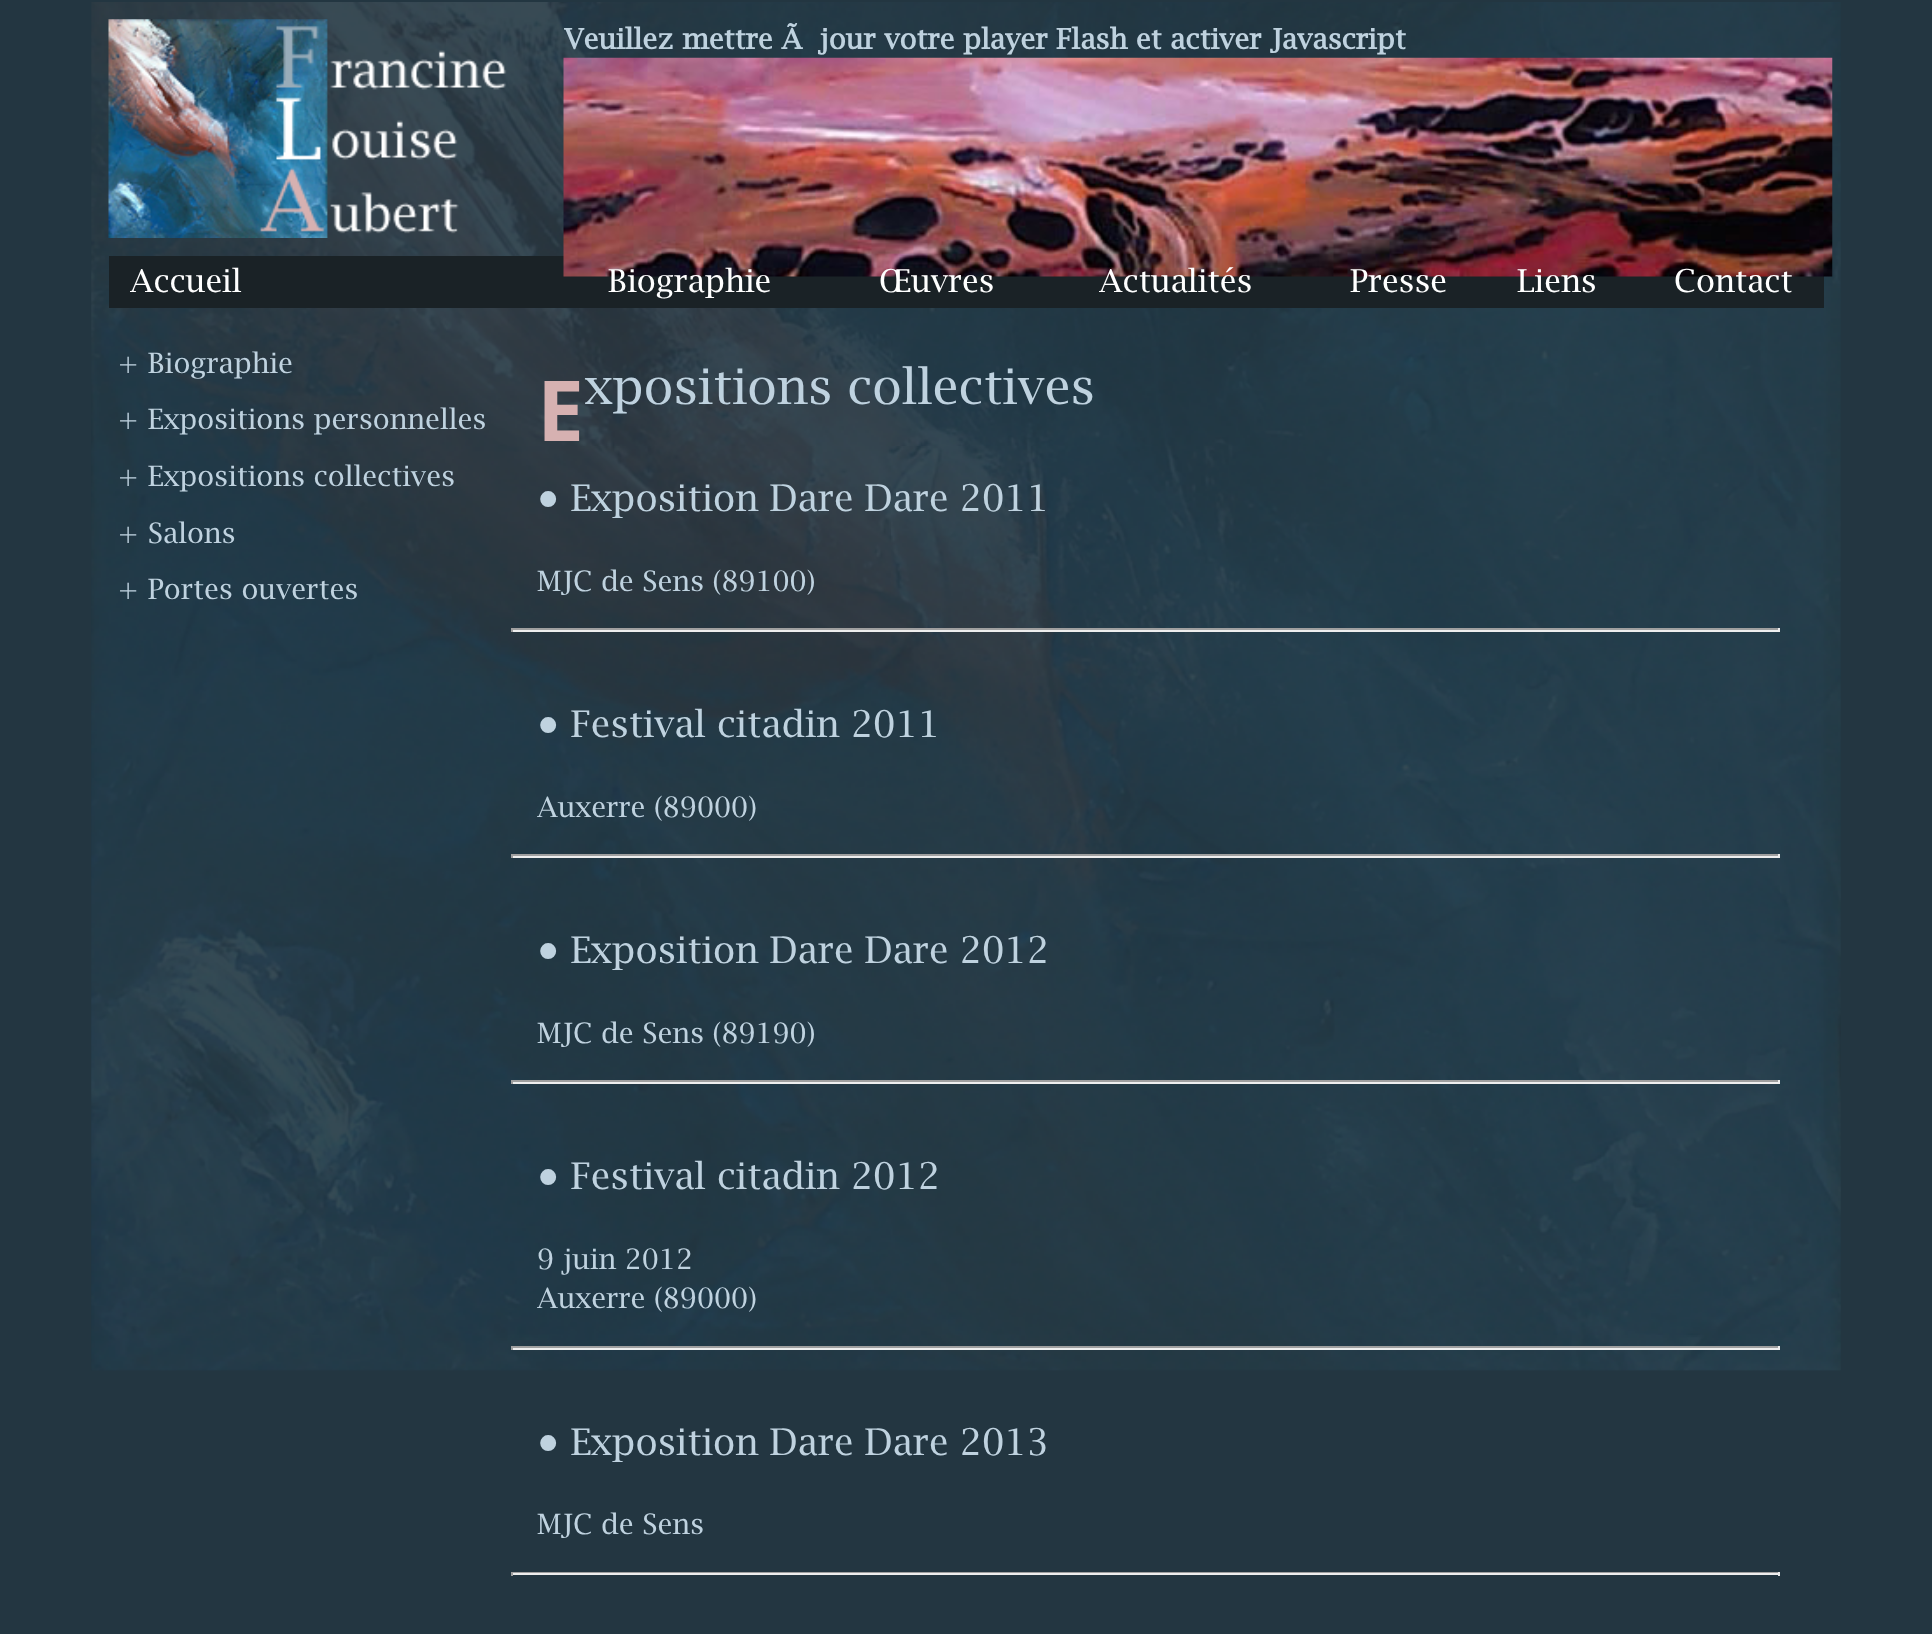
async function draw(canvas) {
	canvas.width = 1932;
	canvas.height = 1634;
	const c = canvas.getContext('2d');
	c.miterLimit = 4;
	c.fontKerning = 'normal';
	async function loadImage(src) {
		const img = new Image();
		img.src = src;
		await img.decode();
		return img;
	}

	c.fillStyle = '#233641';
	c.fillRect(0, 0, 1932, 1634);
	c.drawImage(await loadImage('img1.png'), 91, 2, 1750, 1369);
	c.drawImage(await loadImage('img2.png'), 108, 19, 399, 219);
	c.font = 'bold 28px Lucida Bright';
	c.fillStyle = '#bfd2df';
	c.fillText('Veuillez mettre Ã  jour votre player Flash et activer Javascript', 564, 49);
	c.fillStyle = '#1a2226';
	c.fillRect(109, 256, 1715, 52);
	c.drawImage(await loadImage('img3.png'), 563, 57, 1270, 220);
	c.font = '31.5px Lucida Bright';
	c.fillStyle = '#fff';
	for (const [text, x, y] of [
		['Accueil', 130, 292],
		['Biographie', 608, 292],
		['Œuvres', 879, 292],
		['Actualités', 1099, 292],
		['Presse', 1350, 292],
		['Liens', 1517, 292],
		['Contact', 1674, 292],
	]) {
		c.fillText(text, x, y);
	}
	c.font = '28px Lucida Bright';
	c.fillStyle = '#bfd2df';
	for (const [text, x, y] of [
		['+ Biographie', 117, 373],
		['+ Expositions personnelles', 117, 429],
		['+ Expositions collectives', 117, 486],
		['+ Salons', 117, 543],
		['+ Portes ouvertes', 117, 599],
	]) {
		c.fillText(text, x, y);
	}
	c.font = 'bold 84px Noto Sans';
	c.fillStyle = '#d6b1b1';
	c.fillText('E', 537, 441);
	c.font = '49px Lucida Bright';
	c.fillStyle = '#bfd2df';
	c.fillText('xpositions collectives', 585, 404);
	c.font = '36.75px Lucida Bright';
	c.fillText('• Exposition Dare Dare 2011', 537, 511);
	c.font = '28px Lucida Bright';
	c.fillText('MJC de Sens (89100)', 537, 591);
	for (const [x, y, w, h, color] of [
		[511, 628, 1269, 2, '#9f9f9f'],
		[1778, 628, 2, 4, '#eee'],
		[511, 630, 1269, 2, '#eee'],
		[511, 628, 2, 4, '#9f9f9f'],
	]) {
		c.fillStyle = color;
		c.fillRect(x, y, w, h);
	}
	c.font = '36.75px Lucida Bright';
	c.fillStyle = '#bfd2df';
	c.fillText('• Festival citadin 2011', 537, 737);
	c.font = '28px Lucida Bright';
	c.fillText('Auxerre (89000)', 537, 817);
	for (const [x, y, w, h, color] of [
		[511, 854, 1269, 2, '#9f9f9f'],
		[1778, 854, 2, 4, '#eee'],
		[511, 856, 1269, 2, '#eee'],
		[511, 854, 2, 4, '#9f9f9f'],
	]) {
		c.fillStyle = color;
		c.fillRect(x, y, w, h);
	}
	c.font = '36.75px Lucida Bright';
	c.fillStyle = '#bfd2df';
	c.fillText('• Exposition Dare Dare 2012', 537, 963);
	c.font = '28px Lucida Bright';
	c.fillText('MJC de Sens (89190)', 537, 1043);
	for (const [x, y, w, h, color] of [
		[511, 1080, 1269, 2, '#9f9f9f'],
		[1778, 1080, 2, 4, '#eee'],
		[511, 1082, 1269, 2, '#eee'],
		[511, 1080, 2, 4, '#9f9f9f'],
	]) {
		c.fillStyle = color;
		c.fillRect(x, y, w, h);
	}
	c.font = '36.75px Lucida Bright';
	c.fillStyle = '#bfd2df';
	c.fillText('• Festival citadin 2012', 537, 1189);
	c.font = '28px Lucida Bright';
	c.fillText('9 juin 2012', 537, 1269);
	c.fillText('Auxerre (89000)', 537, 1308);
	for (const [x, y, w, h, color] of [
		[511, 1346, 1269, 2, '#9f9f9f'],
		[1778, 1346, 2, 4, '#eee'],
		[511, 1348, 1269, 2, '#eee'],
		[511, 1346, 2, 4, '#9f9f9f'],
	]) {
		c.fillStyle = color;
		c.fillRect(x, y, w, h);
	}
	c.font = '36.75px Lucida Bright';
	c.fillStyle = '#bfd2df';
	c.fillText('• Exposition Dare Dare 2013', 537, 1455);
	c.font = '28px Lucida Bright';
	c.fillText('MJC de Sens', 537, 1534);
	for (const [x, y, w, h, color] of [
		[511, 1572, 1269, 1, '#9f9f9f'],
		[1778, 1572, 2, 4, '#eee'],
		[511, 1573, 1269, 2, '#eee'],
		[511, 1572, 2, 4, '#9f9f9f'],
	]) {
		c.fillStyle = color;
		c.fillRect(x, y, w, h);
	}
}

draw(document.querySelector('canvas'));
